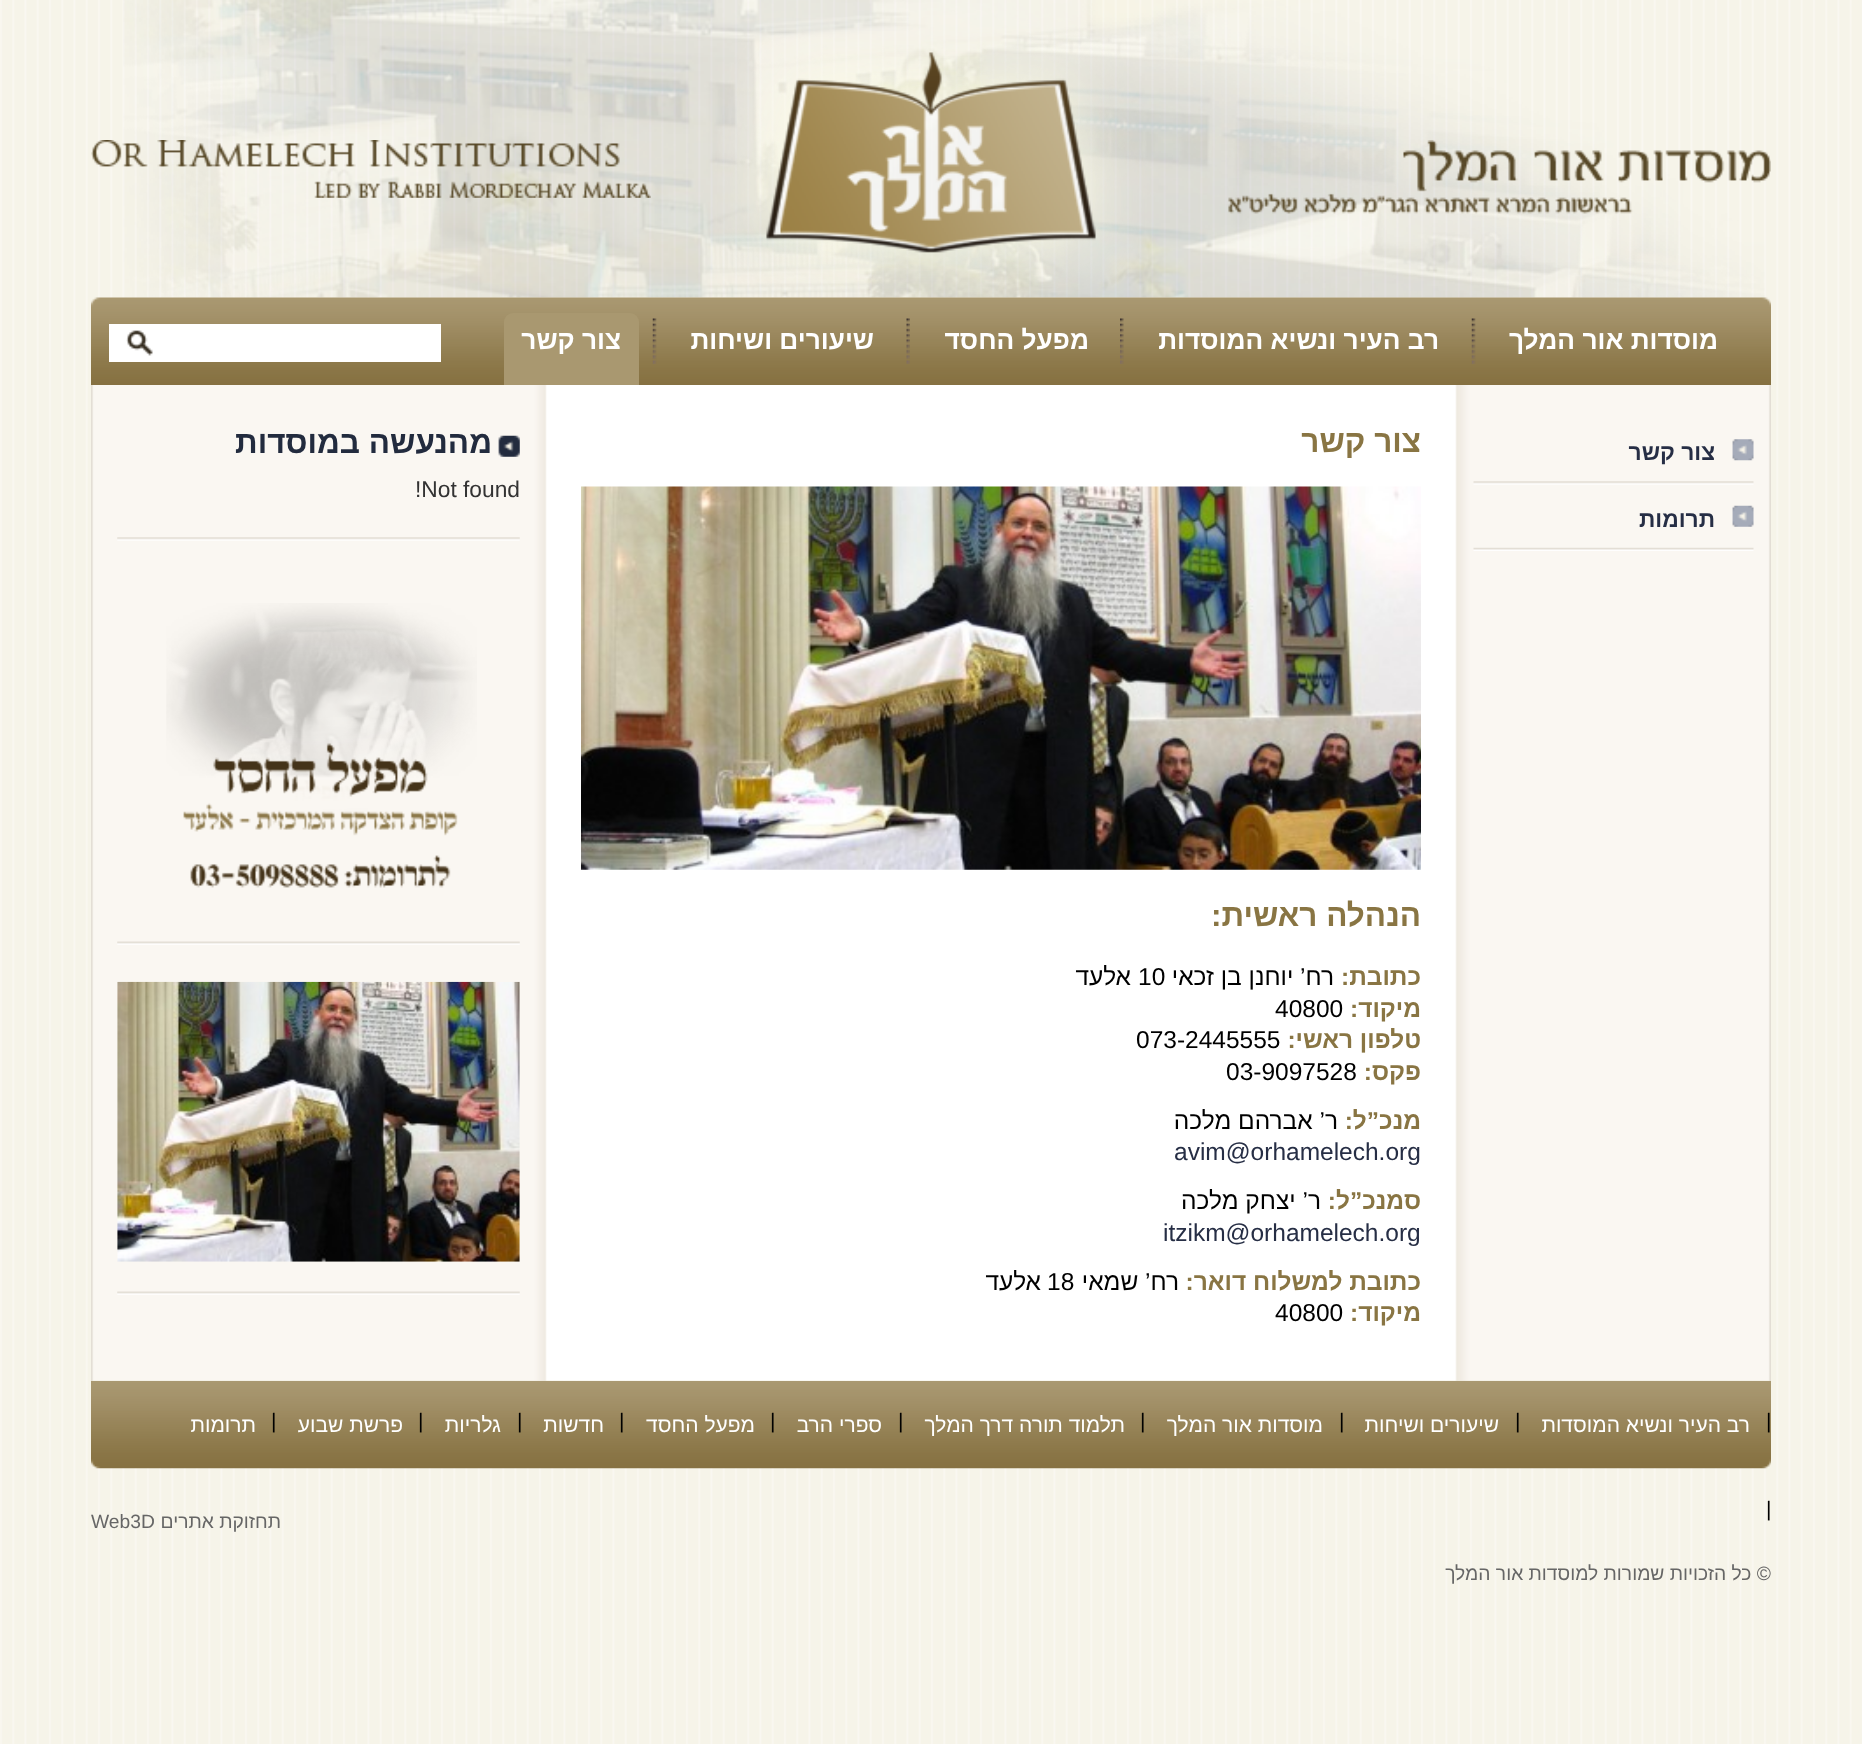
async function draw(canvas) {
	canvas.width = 1862;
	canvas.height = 1744;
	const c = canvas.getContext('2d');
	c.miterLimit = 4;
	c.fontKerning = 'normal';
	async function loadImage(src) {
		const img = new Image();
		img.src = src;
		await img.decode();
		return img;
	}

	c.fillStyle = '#fff';
	c.fillRect(0, 0, 1862, 1744);
	c.drawImage(await loadImage('img1.png'), 0, 0, 1862, 1744);
	c.drawImage(await loadImage('img2.png'), 123, 0, 1642, 298);
	c.drawImage(await loadImage('img3.png'), 1228, 140, 543, 74);
	c.drawImage(await loadImage('img4.png'), 91, 140, 560, 58);
	c.drawImage(await loadImage('img5.png'), 91, 297, 1680, 88);
	c.direction = 'rtl';
	c.font = 'bold 26.25px Liberation Sans';
	c.fillText('מוסדות אור המלך', 1718, 349);
	c.drawImage(await loadImage('img6.png'), 1471, 318, 5, 46);
	c.fillText('רב העיר ונשיא המוסדות', 1439, 349);
	c.drawImage(await loadImage('img7.png'), 1120, 318, 4, 46);
	c.fillText('מפעל החסד', 1089, 349);
	c.drawImage(await loadImage('img8.png'), 906, 318, 4, 46);
	c.fillText('שיעורים ושיחות', 874, 349);
	c.drawImage(await loadImage('img6.png'), 652, 318, 5, 46);
	c.fillStyle = '#a99870';
	c.beginPath();
	c.roundRect(504, 313, 135, 72, [9, 9, 0, 0]);
	c.fill();
	c.fillStyle = '#fff';
	c.fillText('צור קשר', 621, 349);
	c.fillRect(109, 324, 332, 38);
	c.drawImage(await loadImage('img9.png'), 126, 330, 27, 26);
	c.drawImage(await loadImage('img10.png'), 91, 385, 1680, 996);
	c.drawImage(await loadImage('img11.png'), 1473, 481, 281, 4);
	c.drawImage(await loadImage('img12.png'), 1732, 439, 22, 22);
	c.font = 'bold 22.75px Liberation Sans';
	c.fillStyle = '#262e45';
	c.fillText('צור קשר', 1715, 460);
	c.drawImage(await loadImage('img13.png'), 1473, 547, 281, 4);
	c.drawImage(await loadImage('img14.png'), 1732, 505, 22, 22);
	c.fillText('תרומות', 1715, 527);
	c.font = 'bold 31.5px Liberation Sans';
	c.fillStyle = '#897543';
	c.fillText('צור קשר', 1421, 452);
	c.drawImage(await loadImage('img15.png'), 581, 486, 840, 384);
	c.fillText('הנהלה ראשית:', 1421, 926);
	c.font = 'bold 24.5px Liberation Sans';
	c.fillText('כתובת:', 1421, 985);
	c.font = '24.5px Liberation Sans';
	c.fillStyle = '#000';
	c.fillText('רח’ יוחנן בן זכאי', 1334, 985);
	c.direction = 'ltr';
	c.fillText('10', 1138, 985);
	c.direction = 'rtl';
	c.fillText('אלעד', 1131, 985);
	c.font = 'bold 24.5px Liberation Sans';
	c.fillStyle = '#897543';
	c.fillText('מיקוד:', 1421, 1017);
	c.direction = 'ltr';
	c.font = '24.5px Liberation Sans';
	c.fillStyle = '#000';
	c.fillText('40800', 1275, 1017);
	c.direction = 'rtl';
	c.font = 'bold 24.5px Liberation Sans';
	c.fillStyle = '#897543';
	c.fillText('טלפון ראשי:', 1421, 1048);
	c.direction = 'ltr';
	c.font = '24.5px Liberation Sans';
	c.fillStyle = '#000';
	c.fillText('073-2445555', 1136, 1048);
	c.direction = 'rtl';
	c.font = 'bold 24.5px Liberation Sans';
	c.fillStyle = '#897543';
	c.fillText('פקס:', 1421, 1080);
	c.direction = 'ltr';
	c.font = '24.5px Liberation Sans';
	c.fillStyle = '#000';
	c.fillText('03-9097528', 1226, 1080);
	c.direction = 'rtl';
	c.font = 'bold 24.5px Liberation Sans';
	c.fillStyle = '#897543';
	c.fillText('מנכ”ל:', 1421, 1129);
	c.font = '24.5px Liberation Sans';
	c.fillStyle = '#000';
	c.fillText('ר’ אברהם מלכה', 1338, 1129);
	c.direction = 'ltr';
	c.fillStyle = '#262e45';
	c.fillText('avim@orhamelech.org', 1174, 1160);
	c.direction = 'rtl';
	c.font = 'bold 24.5px Liberation Sans';
	c.fillStyle = '#897543';
	c.fillText('סמנכ”ל:', 1421, 1209);
	c.font = '24.5px Liberation Sans';
	c.fillStyle = '#000';
	c.fillText('ר’ יצחק מלכה', 1321, 1209);
	c.direction = 'ltr';
	c.fillStyle = '#262e45';
	c.fillText('itzikm@orhamelech.org', 1163, 1241);
	c.direction = 'rtl';
	c.font = 'bold 24.5px Liberation Sans';
	c.fillStyle = '#897543';
	c.fillText('כתובת למשלוח דואר:', 1421, 1290);
	c.font = '24.5px Liberation Sans';
	c.fillStyle = '#000';
	c.fillText('רח’ שמאי', 1179, 1290);
	c.direction = 'ltr';
	c.fillText('18', 1047, 1290);
	c.direction = 'rtl';
	c.fillText('אלעד', 1041, 1290);
	c.font = 'bold 24.5px Liberation Sans';
	c.fillStyle = '#897543';
	c.fillText('מיקוד:', 1421, 1321);
	c.direction = 'ltr';
	c.font = '24.5px Liberation Sans';
	c.fillStyle = '#000';
	c.fillText('40800', 1275, 1321);
	c.drawImage(await loadImage('img16.png'), 117, 537, 403, 4);
	c.drawImage(await loadImage('img17.png'), 498, 435, 22, 22);
	c.direction = 'rtl';
	c.font = 'bold 31.5px Liberation Sans';
	c.fillStyle = '#222b3e';
	c.fillText('מהנעשה במוסדות', 492, 453);
	c.direction = 'ltr';
	c.font = '22.75px Liberation Sans';
	c.fillStyle = '#333';
	c.fillText('!Not found', 415, 497);
	c.drawImage(await loadImage('img18.png'), 117, 941, 403, 4);
	c.drawImage(await loadImage('img19.png'), 166, 603, 311, 285);
	c.drawImage(await loadImage('img18.png'), 117, 1291, 403, 4);
	c.drawImage(await loadImage('img20.png'), 117, 981, 403, 281);
	c.drawImage(await loadImage('img21.png'), 91, 1380, 1680, 89);
	c.font = '21px Liberation Sans';
	c.fillStyle = '#000';
	c.fillText('|', 1766, 1428);
	c.direction = 'rtl';
	c.fillStyle = '#fff';
	c.fillText('רב העיר ונשיא המוסדות', 1750, 1432);
	c.direction = 'ltr';
	c.fillStyle = '#000';
	c.fillText('|', 1515, 1428);
	c.direction = 'rtl';
	c.fillStyle = '#fff';
	c.fillText('שיעורים ושיחות', 1499, 1432);
	c.direction = 'ltr';
	c.fillStyle = '#000';
	c.fillText('|', 1339, 1428);
	c.direction = 'rtl';
	c.fillStyle = '#fff';
	c.fillText('מוסדות אור המלך', 1323, 1432);
	c.direction = 'ltr';
	c.fillStyle = '#000';
	c.fillText('|', 1140, 1428);
	c.direction = 'rtl';
	c.fillStyle = '#fff';
	c.fillText('תלמוד תורה דרך המלך', 1125, 1432);
	c.direction = 'ltr';
	c.fillStyle = '#000';
	c.fillText('|', 898, 1428);
	c.direction = 'rtl';
	c.fillStyle = '#fff';
	c.fillText('ספרי הרב', 882, 1432);
	c.direction = 'ltr';
	c.fillStyle = '#000';
	c.fillText('|', 770, 1428);
	c.direction = 'rtl';
	c.fillStyle = '#fff';
	c.fillText('מפעל החסד', 755, 1432);
	c.direction = 'ltr';
	c.fillStyle = '#000';
	c.fillText('|', 619, 1428);
	c.direction = 'rtl';
	c.fillStyle = '#fff';
	c.fillText('חדשות', 604, 1432);
	c.direction = 'ltr';
	c.fillStyle = '#000';
	c.fillText('|', 517, 1428);
	c.direction = 'rtl';
	c.fillStyle = '#fff';
	c.fillText('גלריות', 501, 1432);
	c.direction = 'ltr';
	c.fillStyle = '#000';
	c.fillText('|', 418, 1428);
	c.direction = 'rtl';
	c.fillStyle = '#fff';
	c.fillText('פרשת שבוע', 403, 1432);
	c.direction = 'ltr';
	c.fillStyle = '#000';
	c.fillText('|', 271, 1428);
	c.direction = 'rtl';
	c.fillStyle = '#fff';
	c.fillText('תרומות', 256, 1432);
	c.direction = 'ltr';
	c.fillStyle = '#000';
	c.fillText('|', 1766, 1516);
	c.direction = 'rtl';
	c.font = '19.25px Liberation Sans';
	c.fillStyle = '#666';
	c.fillText('תחזוקת אתרים', 281, 1528);
	c.direction = 'ltr';
	c.fillText('Web3D', 91, 1528);
	c.direction = 'rtl';
	c.fillText('© כל הזכויות שמורות למוסדות אור המלך', 1771, 1580);
}

draw(document.querySelector('canvas'));
